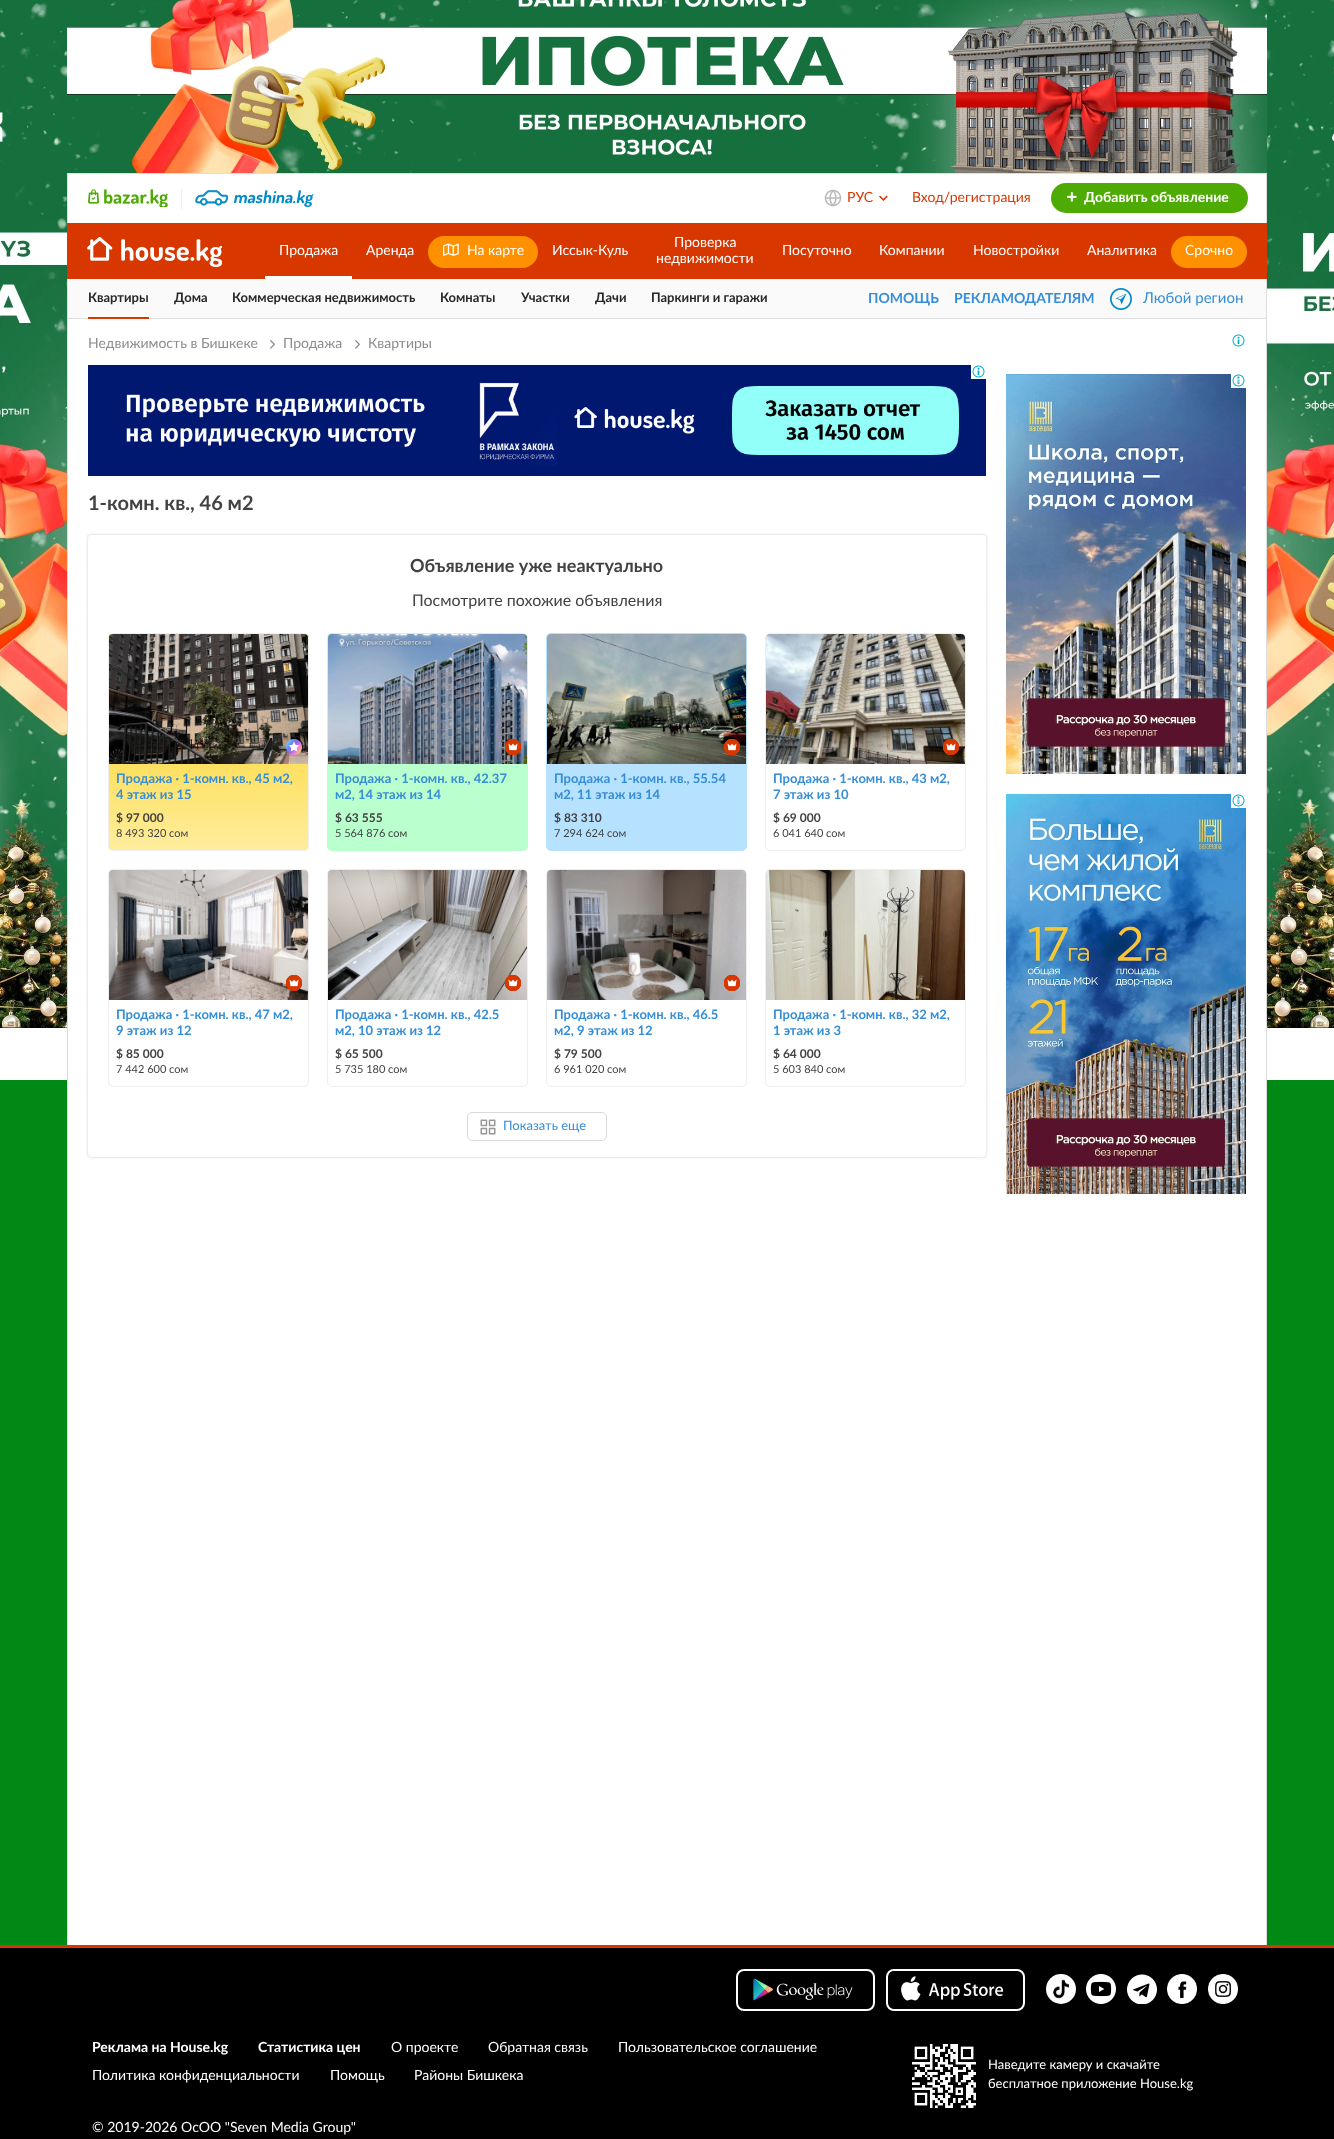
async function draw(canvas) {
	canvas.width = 1334;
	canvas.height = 2139;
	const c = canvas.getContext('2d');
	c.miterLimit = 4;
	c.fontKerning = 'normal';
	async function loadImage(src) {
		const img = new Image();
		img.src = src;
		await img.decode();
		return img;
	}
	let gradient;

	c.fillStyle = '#fff';
	c.fillRect(0, 0, 1334, 2139);
	c.fillStyle = '#008915';
	c.fillRect(0, 1080, 67, 865);
	c.drawImage(await loadImage('img1.png'), 0, 0, 67, 1080);
	c.drawImage(await loadImage('img2.png'), 67, 0, 1200, 173);
	c.fillRect(1267, 1080, 67, 865);
	c.drawImage(await loadImage('img3.png'), 1267, 0, 67, 1080);
	for (const [x, y, w, h, color] of [
		[67, 173, 1200, 1, '#dedede'],
		[1266, 173, 1, 50, '#dedede'],
		[67, 173, 1, 50, '#dedede'],
	]) {
		c.fillStyle = color;
		c.fillRect(x, y, w, h);
	}
	c.drawImage(await loadImage('img4.png'), 88, 189, 80, 18);
	c.fillStyle = '#ececec';
	c.fillRect(181, 189, 1, 20);
	c.drawImage(await loadImage('img5.png'), 195, 190, 119, 17);
	c.drawImage(await loadImage('img6.png'), 824, 189, 18, 18);
	c.font = '14px Lato';
	c.fillStyle = '#d83700';
	c.fillText('РУС', 847, 202);
	c.drawImage(await loadImage('img7.png'), 879, 195, 9, 6);
	c.fillText('Вход/регистрация', 912, 202);
	c.fillStyle = '#4dab04';
	c.beginPath();
	c.roundRect(1051, 183, 197, 30, 15);
	c.fill();
	c.drawImage(await loadImage('img8.png'), 1067, 192, 10, 10);
	c.font = 'bold 14px Lato';
	c.fillStyle = '#fff';
	c.fillText('Добавить объявление', 1084, 202);
	c.fillStyle = '#d83700';
	c.fillRect(67, 223, 1200, 56);
	c.drawImage(await loadImage('img9.png'), 87, 237, 135, 30);
	c.fillStyle = '#fff';
	c.fillRect(265, 276, 87, 3);
	c.font = '14px Lato';
	c.fillText('Продажа', 279, 255);
	c.fillText('Аренда', 366, 255);
	c.fillStyle = '#ff9000';
	c.beginPath();
	c.roundRect(428, 236, 110, 32, 16);
	c.fill();
	c.drawImage(await loadImage('img10.png'), 443, 243, 16, 13);
	c.fillStyle = '#fff';
	for (const [text, x, y] of [
		['На карте', 467, 255],
		['Иссык-Куль', 552, 255],
		['Проверка', 674, 247],
		['недвижимости', 656, 263],
		['Посуточно', 782, 255],
		['Компании', 879, 255],
		['Новостройки', 973, 255],
		['Аналитика', 1087, 255],
	]) {
		c.fillText(text, x, y);
	}
	c.fillStyle = '#ff9000';
	c.beginPath();
	c.roundRect(1171, 236, 76, 32, 16);
	c.fill();
	c.fillStyle = '#fff';
	c.fillText('Срочно', 1185, 255);
	for (const [x, y, w, h, color] of [
		[68, 279, 1198, 39, '#fafafa'],
		[1266, 279, 1, 40, '#dedede'],
		[67, 318, 1200, 1, '#dedede'],
		[67, 279, 1, 40, '#dedede'],
		[88, 317, 61, 2, '#d83700'],
	]) {
		c.fillStyle = color;
		c.fillRect(x, y, w, h);
	}
	c.font = 'bold 13px Lato';
	c.fillStyle = '#272727';
	for (const [text, x, y] of [
		['Квартиры', 88, 302],
		['Дома', 174, 302],
		['Коммерческая недвижимость', 232, 302],
		['Комнаты', 440, 302],
		['Участки', 521, 302],
		['Дачи', 595, 302],
		['Паркинги и гаражи', 651, 302],
	]) {
		c.fillText(text, x, y);
	}
	c.font = 'bold 14px Lato';
	c.fillStyle = '#368ed8';
	c.fillText('ПОМОЩЬ', 868, 303);
	c.fillText('РЕКЛАМОДАТЕЛЯМ', 954, 303);
	c.drawImage(await loadImage('img11.png'), 1110, 288, 22, 22);
	c.font = '15px Lato';
	c.fillText('Любой регион', 1143, 303);
	c.fillStyle = '#dcdcdc';
	c.fillRect(1266, 319, 1, 1626);
	c.fillRect(67, 319, 1, 1626);
	c.font = '14px Lato';
	c.fillStyle = '#8c8c8c';
	c.fillText('Недвижимость в Бишкеке', 88, 348);
	c.drawImage(await loadImage('img12.png'), 270, 340, 5, 9);
	c.fillText('Продажа', 283, 348);
	c.drawImage(await loadImage('img12.png'), 355, 340, 5, 9);
	c.fillText('Квартиры', 368, 348);
	c.drawImage(await loadImage('img13.png'), 88, 365, 898, 111);
	c.fillStyle = '#fff';
	c.fillRect(971, 365, 15, 14);
	c.drawImage(await loadImage('img14.png'), 972, 365, 13, 13);
	c.font = 'bold 20px Lato';
	c.fillStyle = '#424242';
	c.fillText('1-комн. кв., 46 м2', 88, 510);
	c.save();
	c.beginPath();
	c.moveTo(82, 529);
	c.lineTo(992, 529);
	c.lineTo(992, 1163);
	c.lineTo(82, 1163);
	c.closePath();
	c.moveTo(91, 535);
	c.lineTo(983, 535);
	c.bezierCurveTo(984.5, 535, 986, 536.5, 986, 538);
	c.lineTo(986, 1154);
	c.bezierCurveTo(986, 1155.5, 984.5, 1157, 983, 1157);
	c.lineTo(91, 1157);
	c.bezierCurveTo(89.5, 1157, 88, 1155.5, 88, 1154);
	c.lineTo(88, 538);
	c.bezierCurveTo(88, 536.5, 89.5, 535, 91, 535);
	c.closePath();
	c.clip('evenodd');
	c.fillStyle = '#ccc';
	c.filter = 'blur(1.5px)';
	c.beginPath();
	c.roundRect(88, 535, 898, 622, 3);
	c.fill();
	c.filter = 'none';
	c.restore();
	c.font = 'bold 18px Lato';
	c.fillText('Объявление уже неактуально', 410, 572);
	c.font = '16px Lato';
	c.fillText('Посмотрите похожие объявления', 412, 606);
	c.save();
	c.beginPath();
	c.roundRect(108, 633, 201, 218, 5);
	c.clip();
	gradient = c.createLinearGradient(209, 634, 209, 850);
	gradient.addColorStop(0, '#facc00');
	gradient.addColorStop(1, '#ffed9e');
	c.fillStyle = gradient;
	c.fillRect(108, 634, 201, 216);
	c.restore();
	c.beginPath();
	c.roundRect(108.5, 633.5, 200, 217, 4.5);
	c.strokeStyle = '#eee';
	c.stroke();
	c.drawImage(await loadImage('img15.png'), 109, 634, 199, 130);
	c.drawImage(await loadImage('img16.png'), 286, 739, 16, 16);
	c.font = 'bold 13px Lato';
	c.fillStyle = '#368ed8';
	c.fillText('Продажа · 1-комн. кв., 45 м2,', 116, 783);
	c.fillText('4 этаж из 15', 116, 799);
	c.font = 'bold 12px Lato';
	c.fillStyle = '#424242';
	c.fillText('$ 97 000', 116, 822);
	c.font = '11px Lato';
	c.fillText('8 493 320 сом', 116, 837);
	c.fillStyle = '#baffce';
	c.beginPath();
	c.roundRect(327.5, 633.5, 200, 217, 4.5);
	c.fill();
	c.strokeStyle = '#baffce';
	c.stroke();
	c.drawImage(await loadImage('img17.png'), 328, 634, 199, 130);
	c.drawImage(await loadImage('img18.png'), 505, 739, 16, 16);
	c.drawImage(await loadImage('img19.png'), 505, 739, 16, 16);
	c.drawImage(await loadImage('img20.png'), 505, 739, 16, 16);
	c.drawImage(await loadImage('img21.png'), 505, 739, 16, 16);
	c.font = 'bold 13px Lato';
	c.fillStyle = '#368ed8';
	c.fillText('Продажа · 1-комн. кв., 42.37', 335, 783);
	c.fillText('м2, 14 этаж из 14', 335, 799);
	c.font = 'bold 12px Lato';
	c.fillStyle = '#424242';
	c.fillText('$ 63 555', 335, 822);
	c.font = '11px Lato';
	c.fillText('5 564 876 сом', 335, 837);
	c.fillStyle = '#b6e1ff';
	c.beginPath();
	c.roundRect(546.5, 633.5, 200, 217, 4.5);
	c.fill();
	c.strokeStyle = '#b6e1ff';
	c.stroke();
	c.drawImage(await loadImage('img22.png'), 547, 634, 199, 130);
	c.drawImage(await loadImage('img23.png'), 724, 739, 16, 16);
	c.drawImage(await loadImage('img24.png'), 724, 739, 16, 16);
	c.drawImage(await loadImage('img25.png'), 724, 739, 16, 16);
	c.drawImage(await loadImage('img26.png'), 724, 739, 16, 16);
	c.font = 'bold 13px Lato';
	c.fillStyle = '#368ed8';
	c.fillText('Продажа · 1-комн. кв., 55.54', 554, 783);
	c.fillText('м2, 11 этаж из 14', 554, 799);
	c.font = 'bold 12px Lato';
	c.fillStyle = '#424242';
	c.fillText('$ 83 310', 554, 822);
	c.font = '11px Lato';
	c.fillText('7 294 624 сом', 554, 837);
	c.beginPath();
	c.roundRect(765.5, 633.5, 200, 217, 4.5);
	c.strokeStyle = '#eee';
	c.stroke();
	c.drawImage(await loadImage('img27.png'), 766, 634, 199, 130);
	c.drawImage(await loadImage('img28.png'), 943, 739, 16, 16);
	c.drawImage(await loadImage('img29.png'), 943, 739, 16, 16);
	c.drawImage(await loadImage('img30.png'), 943, 739, 16, 16);
	c.drawImage(await loadImage('img31.png'), 943, 739, 16, 16);
	c.font = 'bold 13px Lato';
	c.fillStyle = '#368ed8';
	c.fillText('Продажа · 1-комн. кв., 43 м2,', 773, 783);
	c.fillText('7 этаж из 10', 773, 799);
	c.font = 'bold 12px Lato';
	c.fillStyle = '#424242';
	c.fillText('$ 69 000', 773, 822);
	c.font = '11px Lato';
	c.fillText('6 041 640 сом', 773, 837);
	c.beginPath();
	c.roundRect(108.5, 869.5, 200, 217, 4.5);
	c.stroke();
	c.drawImage(await loadImage('img32.png'), 109, 870, 199, 130);
	c.drawImage(await loadImage('img33.png'), 286, 975, 16, 16);
	c.drawImage(await loadImage('img34.png'), 286, 975, 16, 16);
	c.drawImage(await loadImage('img35.png'), 286, 975, 16, 16);
	c.drawImage(await loadImage('img36.png'), 286, 975, 16, 16);
	c.font = 'bold 13px Lato';
	c.fillStyle = '#368ed8';
	c.fillText('Продажа · 1-комн. кв., 47 м2,', 116, 1019);
	c.fillText('9 этаж из 12', 116, 1035);
	c.font = 'bold 12px Lato';
	c.fillStyle = '#424242';
	c.fillText('$ 85 000', 116, 1058);
	c.font = '11px Lato';
	c.fillText('7 442 600 сом', 116, 1073);
	c.beginPath();
	c.roundRect(327.5, 869.5, 200, 217, 4.5);
	c.stroke();
	c.drawImage(await loadImage('img37.png'), 328, 870, 199, 130);
	c.drawImage(await loadImage('img38.png'), 505, 975, 16, 16);
	c.drawImage(await loadImage('img39.png'), 505, 975, 16, 16);
	c.drawImage(await loadImage('img40.png'), 505, 975, 16, 16);
	c.drawImage(await loadImage('img41.png'), 505, 975, 16, 16);
	c.font = 'bold 13px Lato';
	c.fillStyle = '#368ed8';
	c.fillText('Продажа · 1-комн. кв., 42.5', 335, 1019);
	c.fillText('м2, 10 этаж из 12', 335, 1035);
	c.font = 'bold 12px Lato';
	c.fillStyle = '#424242';
	c.fillText('$ 65 500', 335, 1058);
	c.font = '11px Lato';
	c.fillText('5 735 180 сом', 335, 1073);
	c.beginPath();
	c.roundRect(546.5, 869.5, 200, 217, 4.5);
	c.stroke();
	c.drawImage(await loadImage('img42.png'), 547, 870, 199, 130);
	c.drawImage(await loadImage('img43.png'), 724, 975, 16, 16);
	c.drawImage(await loadImage('img44.png'), 724, 975, 16, 16);
	c.drawImage(await loadImage('img45.png'), 724, 975, 16, 16);
	c.drawImage(await loadImage('img46.png'), 724, 975, 16, 16);
	c.font = 'bold 13px Lato';
	c.fillStyle = '#368ed8';
	c.fillText('Продажа · 1-комн. кв., 46.5', 554, 1019);
	c.fillText('м2, 9 этаж из 12', 554, 1035);
	c.font = 'bold 12px Lato';
	c.fillStyle = '#424242';
	c.fillText('$ 79 500', 554, 1058);
	c.font = '11px Lato';
	c.fillText('6 961 020 сом', 554, 1073);
	c.beginPath();
	c.roundRect(765.5, 869.5, 200, 217, 4.5);
	c.stroke();
	c.drawImage(await loadImage('img47.png'), 766, 870, 199, 130);
	c.font = 'bold 13px Lato';
	c.fillStyle = '#368ed8';
	c.fillText('Продажа · 1-комн. кв., 32 м2,', 773, 1019);
	c.fillText('1 этаж из 3', 773, 1035);
	c.font = 'bold 12px Lato';
	c.fillStyle = '#424242';
	c.fillText('$ 64 000', 773, 1058);
	c.font = '11px Lato';
	c.fillText('5 603 840 сом', 773, 1073);
	c.drawImage(await loadImage('img48.png'), 480, 1119, 16, 16);
	c.beginPath();
	c.roundRect(467.5, 1112.5, 139, 28, 4.5);
	c.strokeStyle = '#d9d9d9';
	c.stroke();
	c.font = '13px Lato';
	c.fillStyle = '#368ed8';
	c.fillText('Показать еще', 503, 1130);
	c.drawImage(await loadImage('img14.png'), 1232, 334, 13, 13);
	c.drawImage(await loadImage('img49.png'), 1006, 374, 240, 400);
	c.fillStyle = '#fff';
	c.fillRect(1231, 374, 15, 14);
	c.drawImage(await loadImage('img14.png'), 1232, 374, 13, 13);
	c.font = 'bold 10px Lato';
	c.fillStyle = '#8cdae8';
	c.fillText('i', 1237, 383);
	c.drawImage(await loadImage('img50.png'), 1006, 794, 240, 400);
	c.fillStyle = '#fff';
	c.fillRect(1231, 794, 15, 14);
	c.drawImage(await loadImage('img14.png'), 1232, 794, 13, 13);
	c.fillStyle = '#8cdae8';
	c.fillText('i', 1237, 803);
	c.fillStyle = '#000';
	c.fillRect(0, 1948, 1334, 191);
	c.fillStyle = '#d83700';
	c.fillRect(0, 1945, 1334, 3);
	c.beginPath();
	c.roundRect(737, 1970, 137, 40, 7);
	c.strokeStyle = '#fff';
	c.lineWidth = 2;
	c.stroke();
	c.drawImage(await loadImage('img51.png'), 753, 1978, 100, 23);
	c.beginPath();
	c.roundRect(887, 1970, 137, 40, 7);
	c.stroke();
	c.drawImage(await loadImage('img52.png'), 889, 1971, 129, 38);
	c.drawImage(await loadImage('img53.png'), 1046, 1974, 30, 30);
	c.drawImage(await loadImage('img54.png'), 1086, 1974, 30, 30);
	c.drawImage(await loadImage('img55.png'), 1127, 1974, 30, 30);
	c.drawImage(await loadImage('img56.png'), 1167, 1974, 30, 30);
	c.drawImage(await loadImage('img57.png'), 1208, 1974, 30, 30);
	c.font = 'bold 14px Lato';
	c.fillStyle = '#fff';
	c.fillText('Реклама на House.kg', 92, 2052);
	c.fillText('Статистика цен', 258, 2052);
	c.font = '14px Lato';
	for (const [text, x, y] of [
		['О проекте', 391, 2052],
		['Обратная связь', 488, 2052],
		['Пользовательское соглашение', 618, 2052],
		['Политика конфиденциальности', 92, 2080],
		['Помощь', 330, 2080],
		['Районы Бишкека', 414, 2080],
	]) {
		c.fillText(text, x, y);
	}
	c.drawImage(await loadImage('img58.png'), 912, 2044, 64, 64);
	c.font = '13px Lato';
	c.fillText('Наведите камеру и скачайте', 988, 2069);
	c.fillText('бесплатное приложение House.kg', 988, 2088);
	c.font = '14px Lato';
	c.fillText('© 2019-2026 ОсОО "Seven Media Group"', 92, 2132);
}

draw(document.querySelector('canvas'));
